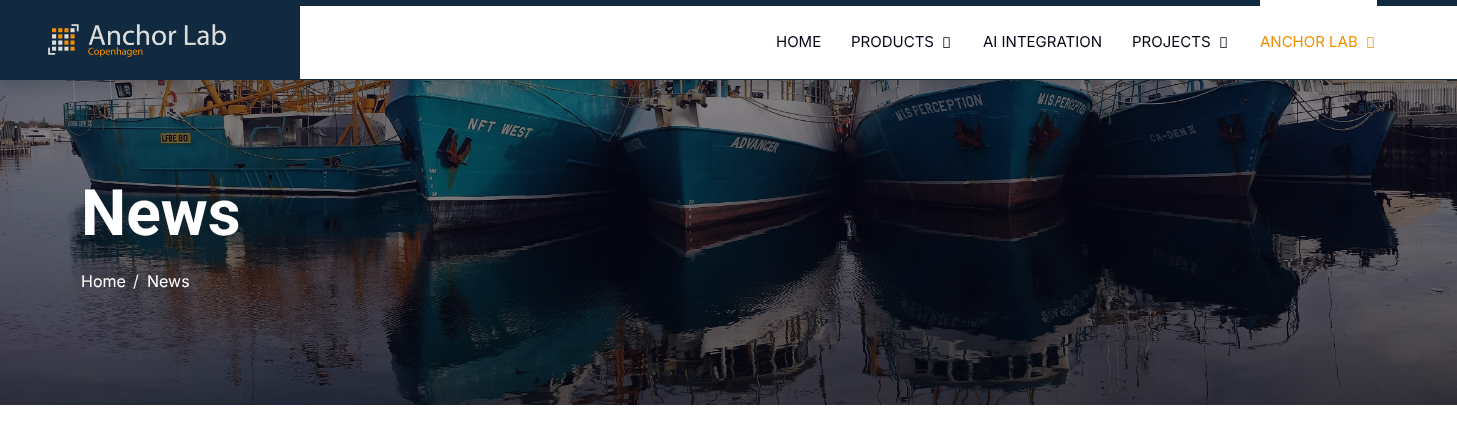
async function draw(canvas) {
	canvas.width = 1457;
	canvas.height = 425;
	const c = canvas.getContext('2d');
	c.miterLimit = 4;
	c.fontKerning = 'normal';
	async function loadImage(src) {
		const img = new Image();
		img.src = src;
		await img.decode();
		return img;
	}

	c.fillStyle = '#fff';
	c.fillRect(0, 0, 1457, 425);
	c.drawImage(await loadImage('img4.png'), 0, 80, 1457, 325);
	c.fillStyle = '#00000026';
	c.filter = 'blur(8px)';
	c.beginPath();
	c.rect(0, 8, 1457, 80);
	c.fill();
	c.filter = 'none';
	c.fillStyle = '#112a3f';
	c.fillRect(0, 0, 1457, 80);
	c.drawImage(await loadImage('img1.png'), 48, 24, 178, 33);
	c.fillStyle = '#fff';
	c.fillRect(300, 6, 1157, 73);
	c.font = '15px Inter';
	c.fillStyle = '#060315';
	c.fillText('HOME', 776, 47);
	c.fillText('PRODUCTS', 851, 47);
	c.drawImage(await loadImage('img2.png'), 943, 37, 7, 11);
	c.fillText('AI INTEGRATION', 983, 47);
	c.fillText('PROJECTS', 1132, 47);
	c.drawImage(await loadImage('img2.png'), 1220, 37, 7, 11);
	c.fillStyle = '#fff';
	c.fillRect(1260, 0, 117, 6);
	c.fillStyle = '#f28e00';
	c.fillText('ANCHOR LAB', 1260, 47);
	c.drawImage(await loadImage('img3.png'), 1367, 37, 7, 11);
	c.font = 'bold 64px Roboto';
	c.fillStyle = '#fff';
	c.fillText('News', 81, 235);
	c.font = '16px Inter';
	c.fillText('Home', 81, 287);
	c.fillStyle = '#f8f2f0';
	c.fillText('/', 133, 287);
	c.fillStyle = '#fff';
	c.fillText('News', 147, 287);
}

draw(document.querySelector('canvas'));
